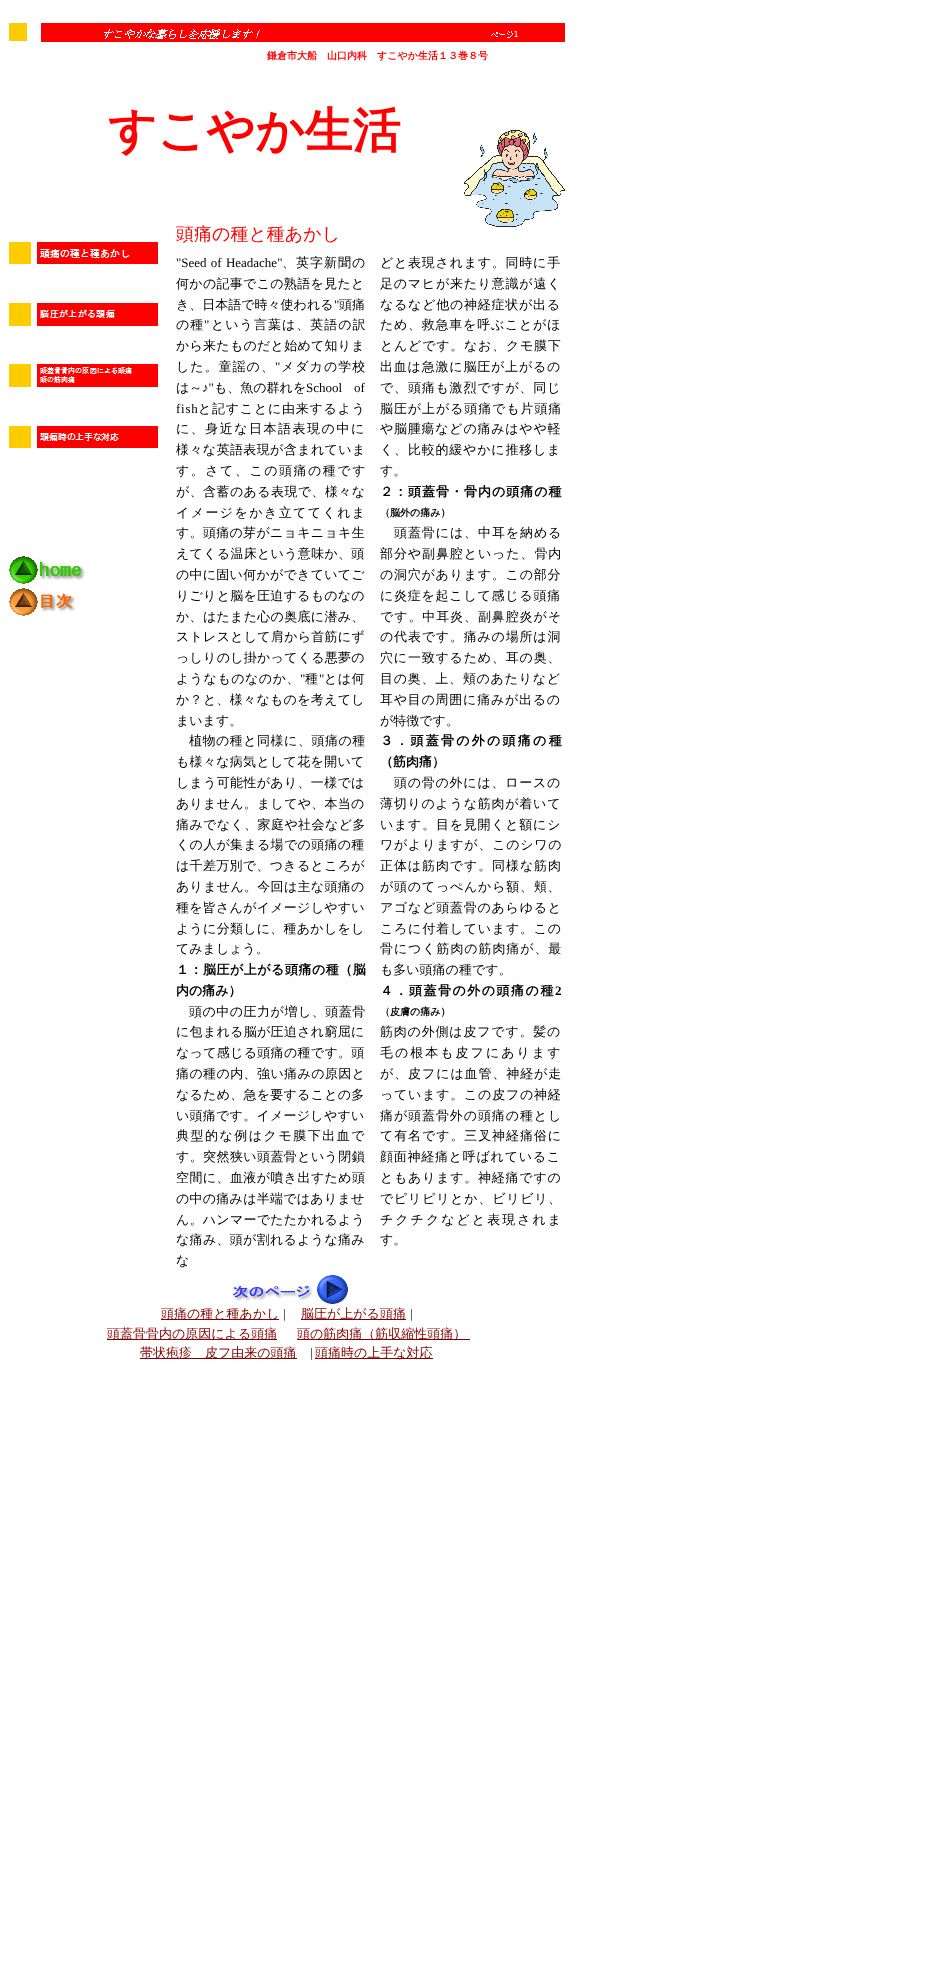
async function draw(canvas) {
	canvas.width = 948;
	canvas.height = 1967;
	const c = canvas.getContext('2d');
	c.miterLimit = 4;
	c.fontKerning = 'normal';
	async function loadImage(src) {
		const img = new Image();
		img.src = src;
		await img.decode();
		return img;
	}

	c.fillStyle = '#fff';
	c.fillRect(0, 0, 948, 1967);
	c.fillStyle = '#fc0';
	c.fillRect(9, 23, 18, 18);
	c.drawImage(await loadImage('img1.png'), 41, 23, 524, 19);
	c.font = 'bold 10px WenQuanYi Zen Hei';
	c.fillStyle = '#f00';
	c.fillText('鎌倉市大船　山口内科　すこやか生活１３巻８号', 267, 59);
	c.font = 'bold 48px WenQuanYi Zen Hei';
	c.fillText('すこやか生活', 108, 147);
	c.drawImage(await loadImage('img2.png'), 464, 130, 101, 97);
	c.font = '500 18px WenQuanYi Zen Hei';
	c.fillText('頭痛の種と種あかし', 176, 240);
	c.drawImage(await loadImage('img3.png'), 9, 242, 149, 206);
	c.wordSpacing = '1px';
	c.font = '13px Liberation Serif';
	c.fillStyle = '#000';
	c.fillText('"Seed of Headache"', 176, 267);
	c.letterSpacing = '1px';
	c.wordSpacing = '0px';
	c.font = '500 13px WenQuanYi Zen Hei';
	c.fillText('、英字新聞の', 282, 267);
	c.letterSpacing = '0.3px';
	c.fillText('何かの記事でこの熟語を見たと', 176, 288);
	c.letterSpacing = '0px';
	c.fillText('き、日本語で時々使われる', 176, 309);
	c.font = '13px Liberation Serif';
	c.fillText('"', 334, 309);
	c.font = '500 13px WenQuanYi Zen Hei';
	c.fillText('頭痛', 339, 309);
	c.letterSpacing = '1px';
	c.fillText('の種', 176, 329);
	c.font = '13px Liberation Serif';
	c.fillText('"', 204, 329);
	c.font = '500 13px WenQuanYi Zen Hei';
	c.fillText('という言葉は、英語の訳', 211, 329);
	c.letterSpacing = '0.25px';
	c.fillText('から来たものだと始めて知りま', 176, 350);
	c.letterSpacing = '1px';
	c.fillText('した。童謡の、', 176, 371);
	c.font = '13px Liberation Serif';
	c.fillText('"', 275, 371);
	c.font = '500 13px WenQuanYi Zen Hei';
	c.fillText('メダカの学校', 281, 371);
	c.letterSpacing = '0px';
	c.fillText('は～', 176, 392);
	c.font = '13px Liberation Serif';
	c.fillText('♪"', 202, 392);
	c.font = '500 13px WenQuanYi Zen Hei';
	c.fillText('も、魚の群れを', 214, 392);
	c.font = '13px Liberation Serif';
	c.fillText('School', 306, 392);
	c.fillText('of', 354, 392);
	c.letterSpacing = '0.75px';
	c.fillText('fish', 176, 413);
	c.font = '500 13px WenQuanYi Zen Hei';
	c.fillText('と記すことに由来するよう', 198, 413);
	c.letterSpacing = '1.5px';
	c.fillText('に、身近な日本語表現の中に', 176, 433);
	c.letterSpacing = '0.4px';
	c.fillText('様々な英語表現が含まれていま', 176, 454);
	c.letterSpacing = '1.5px';
	c.fillText('す。さて、この頭痛の種です', 176, 475);
	c.letterSpacing = '0.4px';
	c.fillText('が、含蓄のある表現で、様々な', 176, 496);
	c.letterSpacing = '1.4px';
	c.fillText('イメージをかき立ててくれま', 176, 517);
	c.letterSpacing = '0.3px';
	c.fillText('す。頭痛の芽がニョキニョキ生', 176, 537);
	c.fillText('えてくる温床という意味か、頭', 176, 558);
	c.letterSpacing = '0.25px';
	c.fillText('の中に固い何かができていてご', 176, 579);
	c.fillText('りごりと脳を圧迫するものなの', 176, 600);
	c.letterSpacing = '0.3px';
	c.fillText('か、はたまた心の奥底に潜み、', 176, 621);
	c.letterSpacing = '0.25px';
	c.fillText('ストレスとして肩から首筋にず', 176, 641);
	c.fillText('っしりのし掛かってくる悪夢の', 176, 662);
	c.letterSpacing = '0.5px';
	c.fillText('ようなものなのか、', 176, 683);
	c.font = '13px Liberation Serif';
	c.fillText('"', 300, 683);
	c.font = '500 13px WenQuanYi Zen Hei';
	c.fillText('種', 305, 683);
	c.font = '13px Liberation Serif';
	c.fillText('"', 319, 683);
	c.font = '500 13px WenQuanYi Zen Hei';
	c.fillText('とは何', 324, 683);
	c.letterSpacing = '0.3px';
	c.fillText('か？と、様々なものを考えてし', 176, 704);
	c.letterSpacing = '0px';
	c.fillText('まいます。', 176, 725);
	c.letterSpacing = '0.5px';
	c.fillText('植物の種と同様に、頭痛の種', 189, 745);
	c.letterSpacing = '0.3px';
	c.fillText('も様々な病気として花を開いて', 176, 766);
	c.fillText('しまう可能性があり、一様では', 176, 787);
	c.letterSpacing = '0.25px';
	c.fillText('ありません。ましてや、本当の', 176, 808);
	c.letterSpacing = '0.4px';
	c.fillText('痛みでなく、家庭や社会など多', 176, 829);
	c.letterSpacing = '0.3px';
	for (const [text, x, y] of [
		['くの人が集まる場での頭痛の種', 176, 849],
		['は千差万別で、つきるところが', 176, 870],
		['ありません。今回は主な頭痛の', 176, 891],
	]) {
		c.fillText(text, x, y);
	}
	c.letterSpacing = '0.25px';
	c.fillText('種を皆さんがイメージしやすい', 176, 912);
	c.fillText('ように分類しに、種あかしをし', 176, 933);
	c.letterSpacing = '0px';
	c.fillText('てみましょう。', 176, 953);
	c.letterSpacing = '0.5px';
	c.font = 'bold 13px WenQuanYi Zen Hei';
	c.fillText('１：脳圧が上がる頭痛の種（脳', 176, 974);
	c.letterSpacing = '0px';
	c.fillText('内の痛み）', 176, 995);
	c.letterSpacing = '0.5px';
	c.font = '500 13px WenQuanYi Zen Hei';
	c.fillText('頭の中の圧力が増し、頭蓋骨', 189, 1016);
	c.letterSpacing = '0.3px';
	c.fillText('に包まれる脳が圧迫され窮屈に', 176, 1036);
	c.fillText('なって感じる頭痛の種です。頭', 176, 1057);
	c.letterSpacing = '0.4px';
	c.fillText('痛の種の内、強い痛みの原因と', 176, 1078);
	c.letterSpacing = '0.25px';
	c.fillText('なるため、急を要することの多', 176, 1099);
	c.fillText('い頭痛です。イメージしやすい', 176, 1120);
	c.letterSpacing = '1.5px';
	c.fillText('典型的な例はクモ膜下出血で', 176, 1140);
	c.letterSpacing = '0.4px';
	c.fillText('す。突然狭い頭蓋骨という閉鎖', 176, 1161);
	c.fillText('空間に、血液が噴き出すため頭', 176, 1182);
	c.letterSpacing = '0.25px';
	c.fillText('の中の痛みは半端ではありませ', 176, 1203);
	c.fillText('ん。ハンマーでたたかれるよう', 176, 1224);
	c.letterSpacing = '0.3px';
	c.fillText('な痛み、頭が割れるような痛み', 176, 1244);
	c.letterSpacing = '0px';
	c.fillText('な', 176, 1265);
	c.letterSpacing = '0.75px';
	for (const [text, x, y] of [
		['どと表現されます。同時に手', 380, 267],
		['足のマヒが来たり意識が遠く', 380, 288],
		['なるなど他の神経症状が出る', 380, 309],
		['ため、救急車を呼ぶことがほ', 380, 329],
		['とんどです。なお、クモ膜下', 380, 350],
	]) {
		c.fillText(text, x, y);
	}
	c.letterSpacing = '0.8px';
	c.fillText('出血は急激に脳圧が上がるの', 380, 371);
	c.fillText('で、頭痛も激烈ですが、同じ', 380, 392);
	c.letterSpacing = '0.9px';
	c.fillText('脳圧が上がる頭痛でも片頭痛', 380, 413);
	c.letterSpacing = '0.75px';
	c.fillText('や脳腫瘍などの痛みはやや軽', 380, 433);
	c.letterSpacing = '0.8px';
	c.fillText('く、比較的緩やかに推移しま', 380, 454);
	c.letterSpacing = '0px';
	c.fillText('す。', 380, 475);
	c.letterSpacing = '1px';
	c.font = 'bold 13px WenQuanYi Zen Hei';
	c.fillText('２：頭蓋骨・骨内の頭痛の種', 380, 496);
	c.letterSpacing = '0px';
	c.font = 'bold 10px WenQuanYi Zen Hei';
	c.fillText('（脳外の痛み）', 380, 516);
	c.letterSpacing = '0.9px';
	c.font = '500 13px WenQuanYi Zen Hei';
	c.fillText('頭蓋骨には、中耳を納める', 394, 537);
	c.fillText('部分や副鼻腔といった、骨内', 380, 558);
	c.letterSpacing = '0.75px';
	c.fillText('の洞穴があります。この部分', 380, 579);
	c.fillText('に炎症を起こして感じる頭痛', 380, 600);
	c.letterSpacing = '0.9px';
	c.fillText('です。中耳炎、副鼻腔炎がそ', 380, 621);
	c.letterSpacing = '0.8px';
	c.fillText('の代表です。痛みの場所は洞', 380, 641);
	c.fillText('穴に一致するため、耳の奥、', 380, 662);
	c.letterSpacing = '0.75px';
	c.fillText('目の奥、上、頬のあたりなど', 380, 683);
	c.fillText('耳や目の周囲に痛みが出るの', 380, 704);
	c.letterSpacing = '0px';
	c.fillText('が特徴です。', 380, 725);
	c.letterSpacing = '2.25px';
	c.font = 'bold 13px WenQuanYi Zen Hei';
	c.fillText('３．頭蓋骨の外の頭痛の種', 380, 745);
	c.letterSpacing = '0px';
	c.fillText('（筋肉痛）', 380, 766);
	c.letterSpacing = '0.75px';
	c.font = '500 13px WenQuanYi Zen Hei';
	for (const [text, x, y] of [
		['頭の骨の外には、ロースの', 394, 787],
		['薄切りのような筋肉が着いて', 380, 808],
		['います。目を見開くと額にシ', 380, 829],
		['ワがよりますが、このシワの', 380, 849],
	]) {
		c.fillText(text, x, y);
	}
	c.letterSpacing = '0.9px';
	c.fillText('正体は筋肉です。同様な筋肉', 380, 870);
	c.letterSpacing = '0.75px';
	for (const [text, x, y] of [
		['が頭のてっぺんから額、頬、', 380, 891],
		['アゴなど頭蓋骨のあらゆると', 380, 912],
		['ころに付着しています。この', 380, 933],
	]) {
		c.fillText(text, x, y);
	}
	c.letterSpacing = '0.9px';
	c.fillText('骨につく筋肉の筋肉痛が、最', 380, 953);
	c.letterSpacing = '0px';
	c.fillText('も多い頭痛の種です。', 380, 974);
	c.letterSpacing = '1.5px';
	c.font = 'bold 13px WenQuanYi Zen Hei';
	c.fillText('４．頭蓋骨の外の頭痛の種', 380, 995);
	c.font = 'bold 13px Liberation Serif';
	c.fillText('2', 555, 995);
	c.letterSpacing = '0px';
	c.font = 'bold 10px WenQuanYi Zen Hei';
	c.fillText('（皮膚の痛み）', 380, 1015);
	c.letterSpacing = '0.8px';
	c.font = '500 13px WenQuanYi Zen Hei';
	c.fillText('筋肉の外側は皮フです。髪の', 380, 1036);
	c.letterSpacing = '2px';
	c.fillText('毛の根本も皮フにあります', 380, 1057);
	c.letterSpacing = '0.9px';
	c.fillText('が、皮フには血管、神経が走', 380, 1078);
	c.letterSpacing = '0.75px';
	c.fillText('っています。この皮フの神経', 380, 1099);
	c.letterSpacing = '0.9px';
	c.fillText('痛が頭蓋骨外の頭痛の種とし', 380, 1120);
	c.fillText('て有名です。三叉神経痛俗に', 380, 1140);
	c.letterSpacing = '0.75px';
	for (const [text, x, y] of [
		['顔面神経痛と呼ばれているこ', 380, 1161],
		['ともあります。神経痛ですの', 380, 1182],
		['でピリピリとか、ビリビリ、', 380, 1203],
	]) {
		c.fillText(text, x, y);
	}
	c.letterSpacing = '2px';
	c.fillText('チクチクなどと表現されま', 380, 1224);
	c.letterSpacing = '0px';
	c.fillText('す。', 380, 1244);
	c.drawImage(await loadImage('img4.png'), 9, 556, 76, 28);
	c.drawImage(await loadImage('img5.png'), 9, 588, 67, 28);
	c.drawImage(await loadImage('img6.png'), 233, 1275, 115, 29);
	c.fillStyle = '#800000';
	c.fillRect(161, 1319, 118, 1);
	c.fillText('頭痛の種と種あかし', 161, 1318);
	c.font = '13px Liberation Serif';
	c.fillStyle = '#000';
	c.fillText('|', 283, 1318);
	c.fillStyle = '#800000';
	c.fillRect(301, 1319, 105, 1);
	c.font = '500 13px WenQuanYi Zen Hei';
	c.fillText('脳圧が上がる頭痛', 301, 1318);
	c.font = '13px Liberation Serif';
	c.fillStyle = '#000';
	c.fillText('|', 410, 1318);
	c.fillStyle = '#800000';
	c.fillRect(107, 1339, 170, 1);
	c.font = '500 13px WenQuanYi Zen Hei';
	c.fillText('頭蓋骨骨内の原因による頭痛', 107, 1338);
	c.fillRect(297, 1339, 173, 1);
	c.fillText('頭の筋肉痛（筋収縮性頭痛）', 297, 1338);
	c.fillRect(140, 1358, 157, 1);
	c.fillText('帯状疱疹　皮フ由来の頭痛', 140, 1357);
	c.font = '13px Liberation Serif';
	c.fillStyle = '#000';
	c.fillText('|', 310, 1357);
	c.fillStyle = '#800000';
	c.fillRect(315, 1358, 118, 1);
	c.font = '500 13px WenQuanYi Zen Hei';
	c.fillText('頭痛時の上手な対応', 315, 1357);
}

draw(document.querySelector('canvas'));
